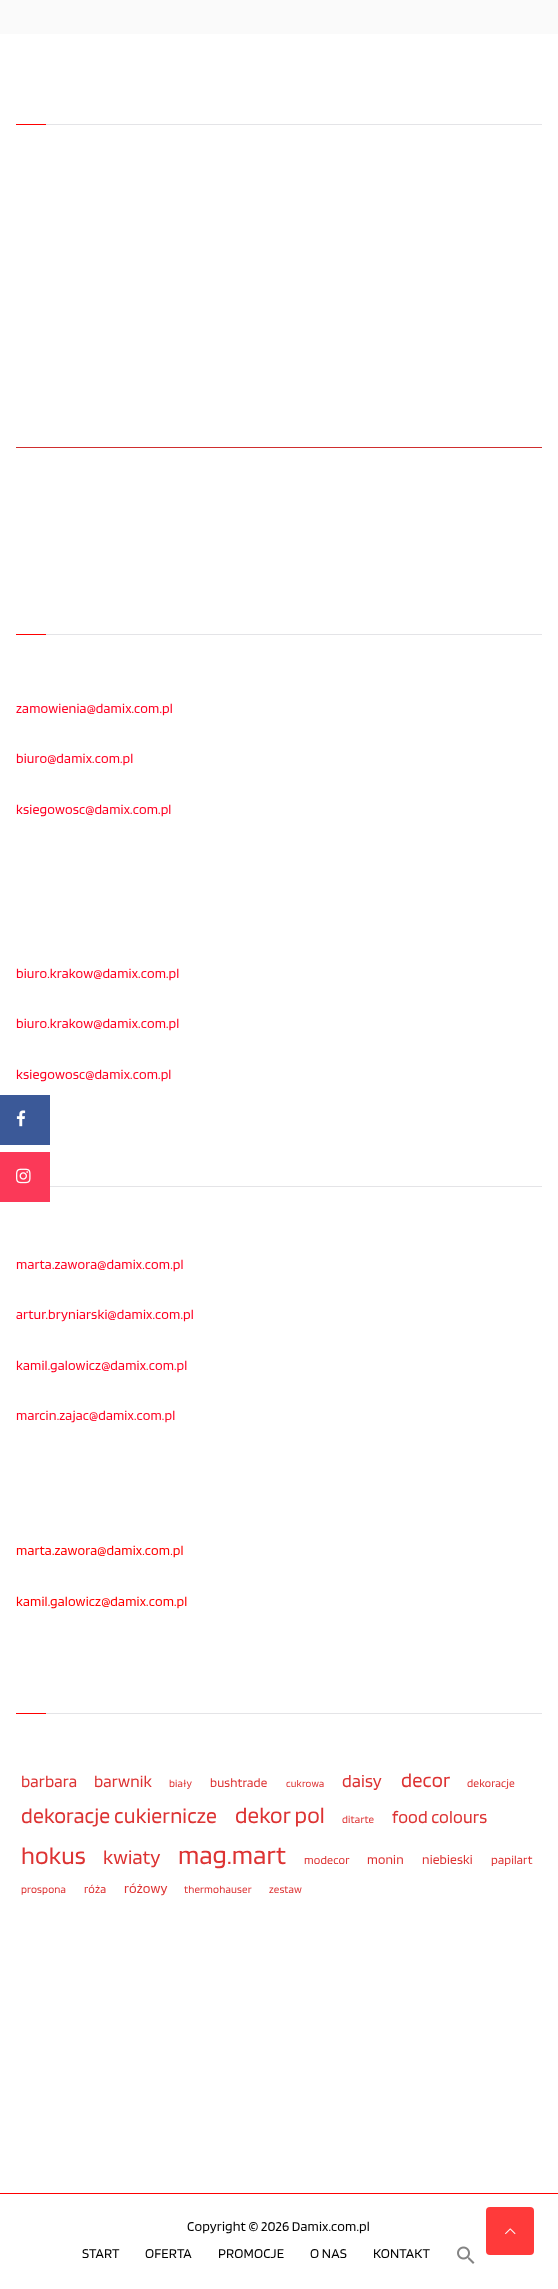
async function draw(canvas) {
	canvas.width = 558;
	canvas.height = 2289;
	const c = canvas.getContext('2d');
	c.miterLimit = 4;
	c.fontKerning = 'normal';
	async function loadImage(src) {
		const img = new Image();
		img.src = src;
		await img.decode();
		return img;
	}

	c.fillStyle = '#fafafa';
	c.fillRect(0, 0, 558, 2289);
	for (const [x, y, w, h, color] of [
		[0, 34, 558, 2159, '#fff'],
		[46, 124, 496, 1, '#e4e4e7'],
		[16, 124, 30, 1, '#f00'],
		[16, 447, 526, 1, '#cf2e2e'],
		[46, 634, 496, 1, '#e4e4e7'],
		[16, 634, 30, 1, '#f00'],
	]) {
		c.fillStyle = color;
		c.fillRect(x, y, w, h);
	}
	c.letterSpacing = '0.15px';
	c.font = '14px Blinker';
	c.fillStyle = '#f02';
	for (const [text, x, y] of [
		['zamowienia@damix.com.pl', 16, 713],
		['biuro@damix.com.pl', 16, 763],
		['ksiegowosc@damix.com.pl', 16, 814],
		['biuro.krakow@damix.com.pl', 16, 978],
		['biuro.krakow@damix.com.pl', 16, 1028],
		['ksiegowosc@damix.com.pl', 16, 1079],
	]) {
		c.fillText(text, x, y);
	}
	c.fillStyle = '#e4e4e7';
	c.fillRect(50, 1186, 492, 1);
	c.fillStyle = '#f02';
	for (const [text, x, y] of [
		['marta.zawora@damix.com.pl', 16, 1269],
		['artur.bryniarski@damix.com.pl', 16, 1319],
		['kamil.galowicz@damix.com.pl', 16, 1370],
		['marcin.zajac@damix.com.pl', 16, 1420],
	]) {
		c.fillText(text, x, y);
	}
	c.fillStyle = '#f00';
	c.fillText('marta.zawora@damix.com.pl', 16, 1555);
	c.fillText('kamil.galowicz@damix.com.pl', 16, 1606);
	c.fillStyle = '#e4e4e7';
	c.fillRect(46, 1713, 496, 1);
	c.fillStyle = '#f00';
	c.fillRect(16, 1713, 30, 1);
	c.font = '17px Blinker';
	c.fillStyle = '#d33';
	c.fillText('barbara', 21, 1787);
	c.fillText('barwnik', 94, 1787);
	c.font = '11px Blinker';
	c.fillText('biały', 169, 1787);
	c.font = '13px Blinker';
	c.fillText('bushtrade', 210, 1787);
	c.font = '10.5px Blinker';
	c.fillText('cukrowa', 286, 1787);
	c.font = '18px Blinker';
	c.fillText('daisy', 342, 1787);
	c.font = '20.5px Blinker';
	c.fillText('decor', 401, 1787);
	c.font = '11.5px Blinker';
	c.fillText('dekoracje', 467, 1787);
	c.font = '21.75px Blinker';
	c.fillText('dekoracje cukiernicze', 21, 1823);
	c.font = '23px Blinker';
	c.fillText('dekor pol', 235, 1823);
	c.font = '11px Blinker';
	c.fillText('ditarte', 342, 1823);
	c.font = '18px Blinker';
	c.fillText('food colours', 392, 1823);
	c.font = '25px Blinker';
	c.fillText('hokus', 21, 1864);
	c.font = '20.5px Blinker';
	c.fillText('kwiaty', 103, 1864);
	c.font = '26.5px Blinker';
	c.fillText('mag.mart', 178, 1864);
	c.font = '12px Blinker';
	c.fillText('modecor', 304, 1864);
	c.font = '13.5px Blinker';
	c.fillText('monin', 367, 1864);
	c.fillText('niebieski', 422, 1864);
	c.font = '12.5px Blinker';
	c.fillText('papilart', 491, 1864);
	c.font = '11px Blinker';
	c.fillText('prospona', 21, 1893);
	c.font = '12px Blinker';
	c.fillText('róża', 84, 1893);
	c.font = '14px Blinker';
	c.fillText('różowy', 124, 1893);
	c.font = '11px Blinker';
	c.fillText('thermohauser', 184, 1893);
	c.fillText('zestaw', 269, 1893);
	c.fillStyle = '#fff';
	c.fillRect(0, 2194, 558, 95);
	c.fillStyle = '#f00';
	c.fillRect(0, 2193, 558, 1);
	c.font = '14px Blinker';
	c.fillStyle = '#000';
	for (const [text, x, y] of [
		['Copyright © 2026 Damix.com.pl', 187, 2231],
		['START', 82, 2258],
		['OFERTA', 145, 2258],
		['PROMOCJE', 218, 2258],
		['O NAS', 310, 2258],
		['KONTAKT', 373, 2258],
	]) {
		c.fillText(text, x, y);
	}
	c.drawImage(await loadImage('img1.png'), 457, 2246, 18, 18);
	c.fillStyle = '#3b5998';
	c.fillRect(0, 1095, 50, 50);
	c.drawImage(await loadImage('img2.png'), 16, 1110, 10, 17);
	c.fillStyle = '#fb3958';
	c.fillRect(0, 1152, 50, 50);
	c.drawImage(await loadImage('img3.png'), 16, 1168, 15, 16);
	c.fillStyle = '#ff3a3a';
	c.beginPath();
	c.roundRect(486, 2207, 48, 48, 4);
	c.fill();
	c.drawImage(await loadImage('img4.png'), 505, 2228, 11, 7);
}

draw(document.querySelector('canvas'));
